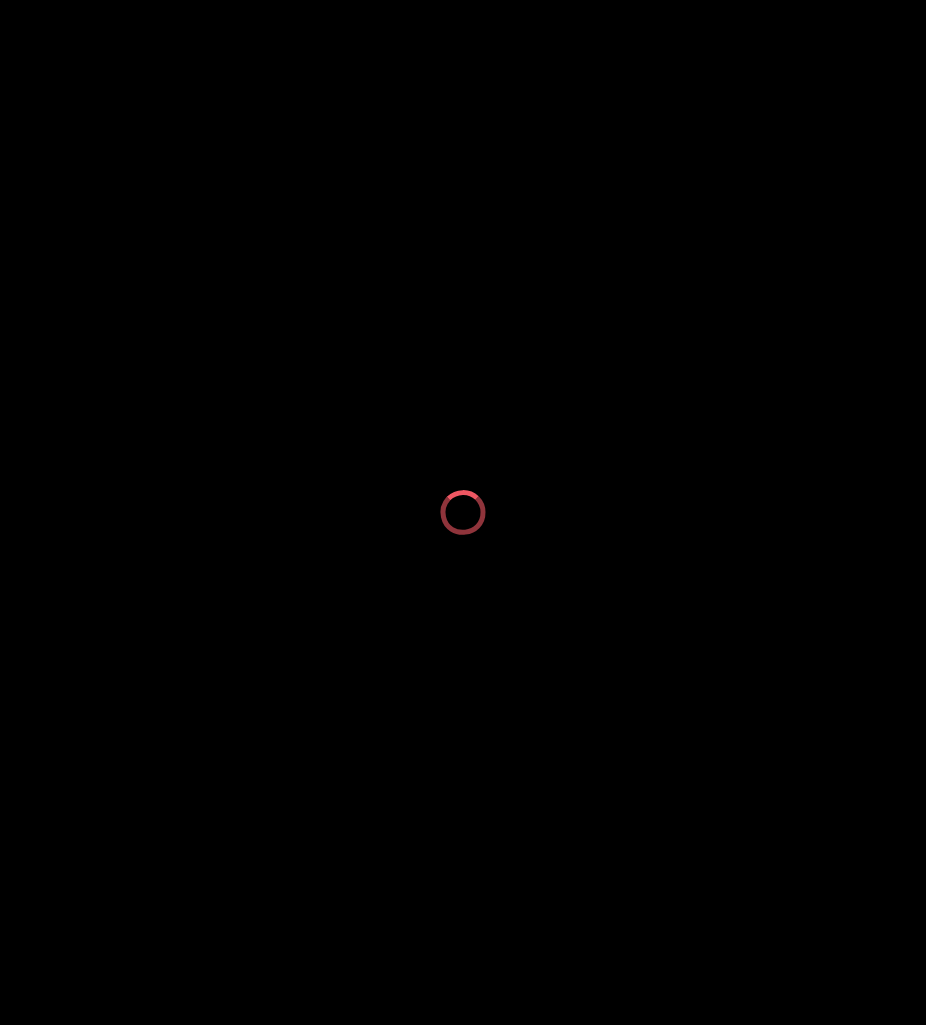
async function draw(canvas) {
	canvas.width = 926;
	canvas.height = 1025;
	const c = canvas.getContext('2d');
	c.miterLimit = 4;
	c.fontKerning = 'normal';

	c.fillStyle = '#000';
	c.fillRect(0, 0, 926, 1025);
	c.beginPath();
	c.moveTo(448.5, 498.5);
	c.bezierCurveTo(456.5, 491, 469, 490.5, 477, 498);
	c.strokeStyle = '#ef5763';
	c.lineWidth = 5;
	c.stroke();
	c.beginPath();
	c.moveTo(477, 498);
	c.bezierCurveTo(481, 502, 483, 507, 483, 512);
	c.bezierCurveTo(483.5, 536, 448.5, 540, 443.5, 517);
	c.bezierCurveTo(442, 510.5, 444, 503.5, 448.5, 498.5);
	c.strokeStyle = '#ef576399';
	c.stroke();
}

draw(document.querySelector('canvas'));
